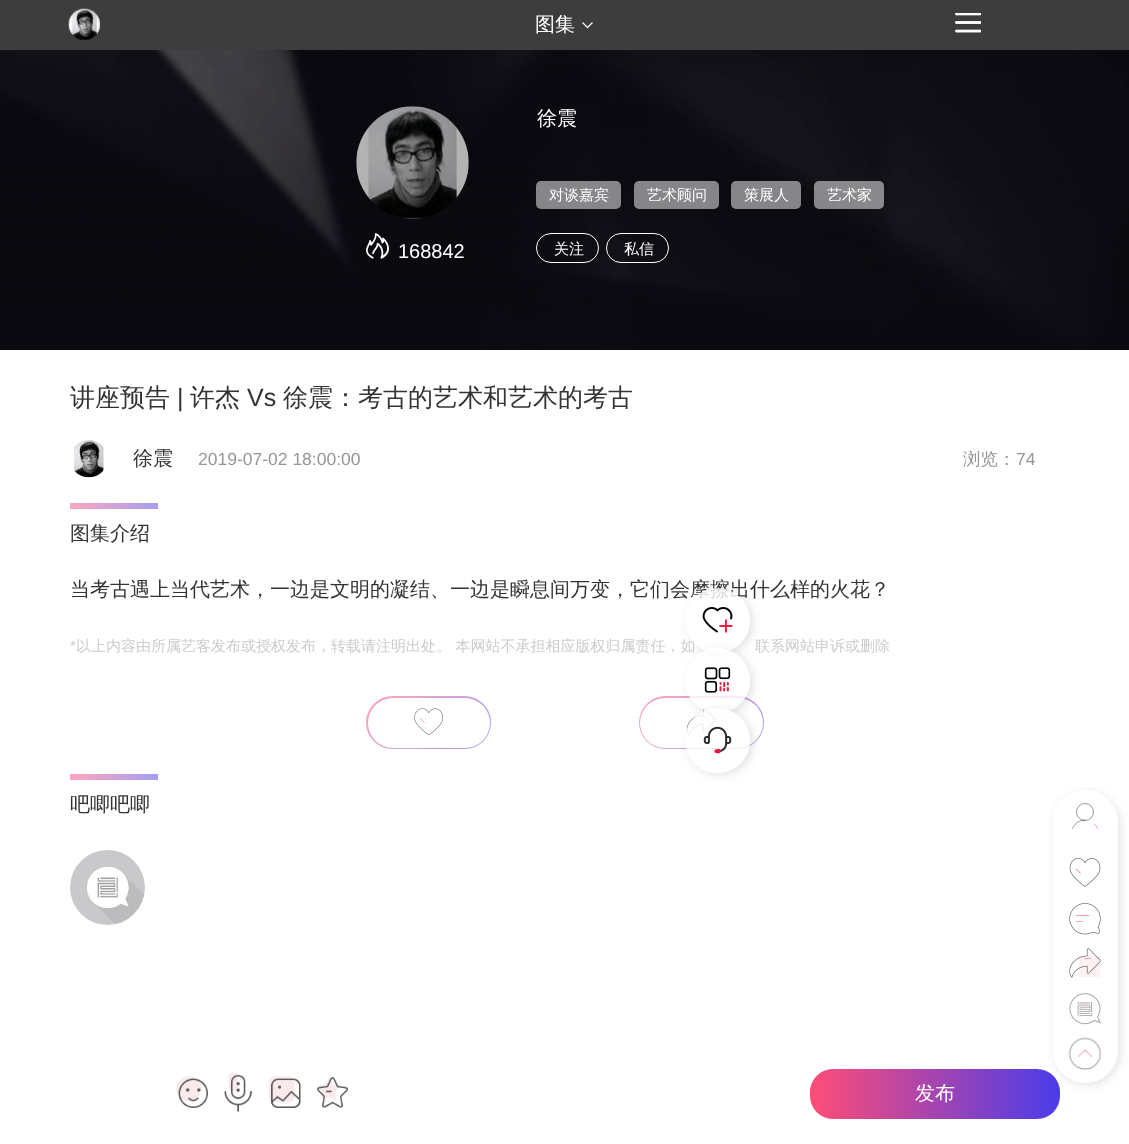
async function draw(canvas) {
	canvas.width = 1129;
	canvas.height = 1144;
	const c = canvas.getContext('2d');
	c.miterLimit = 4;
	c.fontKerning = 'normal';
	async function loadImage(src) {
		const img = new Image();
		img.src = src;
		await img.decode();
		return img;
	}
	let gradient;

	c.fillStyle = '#fff';
	c.fillRect(0, 0, 1129, 1144);
	c.fillStyle = '#3d3d3d';
	c.fillRect(0, 0, 1129, 50);
	c.drawImage(await loadImage('img1.png'), 68, 8, 33, 32);
	c.font = '500 20px WenQuanYi Zen Hei';
	c.fillStyle = '#fff';
	c.fillText('图集', 535, 31);
	c.drawImage(await loadImage('img2.png'), 582, 22, 11, 7);
	c.drawImage(await loadImage('img3.png'), 955, 13, 26, 20);
	c.save();
	c.beginPath();
	c.moveTo(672, 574);
	c.lineTo(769, 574);
	c.lineTo(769, 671);
	c.lineTo(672, 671);
	c.closePath();
	c.moveTo(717.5, 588);
	c.bezierCurveTo(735.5, 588, 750, 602.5, 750, 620.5);
	c.bezierCurveTo(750, 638.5, 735.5, 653, 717.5, 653);
	c.bezierCurveTo(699.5, 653, 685, 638.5, 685, 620.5);
	c.bezierCurveTo(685, 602.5, 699.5, 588, 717.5, 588);
	c.closePath();
	c.clip('evenodd');
	c.fillStyle = '#69696933';
	c.filter = 'blur(5px)';
	c.beginPath();
	c.roundRect(688, 590, 65, 65, 32.5);
	c.fill();
	c.filter = 'none';
	c.restore();
	c.fillStyle = '#333';
	c.fillText('当考古遇上当代艺术，一边是文明的凝结、一边是瞬息间万变，它们会摩擦出什么样的火花？', 70, 596);
	c.font = '500 15px WenQuanYi Zen Hei';
	c.fillStyle = '#ccc';
	c.fillText('以上内容由所属艺客发布或授权发布，转载请注明出处。 本网站不承担相应版权归属责任，如', 76, 651);
	c.fillStyle = '#ffffffcc';
	c.beginPath();
	c.arc(717.5, 620.5, 32.5, 0, 2 * Math.PI);
	c.fill();
	c.drawImage(await loadImage('img4.png'), 702, 607, 31, 26);
	gradient = c.createLinearGradient(657, 678, 746, 767);
	gradient.addColorStop(0, '#ffa6bb');
	gradient.addColorStop(1, '#a59ef4');
	c.fillStyle = gradient;
	c.beginPath();
	c.roundRect(639, 696, 125, 53, 26.5);
	c.fill();
	c.fillStyle = '#fff';
	c.beginPath();
	c.roundRect(640, 698, 123, 50, 25);
	c.fill();
	c.drawImage(await loadImage('img17.png'), 686, 708, 30, 27);
	c.save();
	c.beginPath();
	c.moveTo(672, 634);
	c.lineTo(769, 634);
	c.lineTo(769, 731);
	c.lineTo(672, 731);
	c.closePath();
	c.moveTo(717.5, 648);
	c.bezierCurveTo(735.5, 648, 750, 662.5, 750, 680.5);
	c.bezierCurveTo(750, 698.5, 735.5, 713, 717.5, 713);
	c.bezierCurveTo(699.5, 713, 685, 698.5, 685, 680.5);
	c.bezierCurveTo(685, 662.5, 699.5, 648, 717.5, 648);
	c.closePath();
	c.clip('evenodd');
	c.fillStyle = '#69696933';
	c.filter = 'blur(5px)';
	c.beginPath();
	c.roundRect(688, 650, 65, 65, 32.5);
	c.fill();
	c.filter = 'none';
	c.restore();
	c.fillStyle = '#ffffffcc';
	c.beginPath();
	c.arc(717.5, 680.5, 32.5, 0, 2 * Math.PI);
	c.fill();
	c.drawImage(await loadImage('img5.png'), 704, 667, 27, 26);
	c.save();
	c.beginPath();
	c.moveTo(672, 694);
	c.lineTo(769, 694);
	c.lineTo(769, 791);
	c.lineTo(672, 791);
	c.closePath();
	c.moveTo(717.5, 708);
	c.bezierCurveTo(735.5, 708, 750, 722.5, 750, 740.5);
	c.bezierCurveTo(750, 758.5, 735.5, 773, 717.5, 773);
	c.bezierCurveTo(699.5, 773, 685, 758.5, 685, 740.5);
	c.bezierCurveTo(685, 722.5, 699.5, 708, 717.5, 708);
	c.closePath();
	c.clip('evenodd');
	c.fillStyle = '#69696933';
	c.filter = 'blur(5px)';
	c.beginPath();
	c.roundRect(688, 710, 65, 65, 32.5);
	c.fill();
	c.filter = 'none';
	c.restore();
	c.beginPath();
	c.arc(717.5, 740.5, 32.5, 0, 2 * Math.PI);
	c.fill();
	c.drawImage(await loadImage('img6.png'), 703, 726, 29, 28);
	gradient = c.createLinearGradient(810, 1094, 1060, 1094);
	gradient.addColorStop(0, '#ff4d77');
	gradient.addColorStop(1, '#4a3ce9');
	c.fillStyle = gradient;
	c.beginPath();
	c.roundRect(810, 1069, 250, 50, 23);
	c.fill();
	c.save();
	c.beginPath();
	c.moveTo(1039, 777);
	c.lineTo(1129, 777);
	c.lineTo(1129, 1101);
	c.lineTo(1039, 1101);
	c.closePath();
	c.moveTo(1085.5, 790);
	c.bezierCurveTo(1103.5, 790, 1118, 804.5, 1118, 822.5);
	c.lineTo(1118, 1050.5);
	c.bezierCurveTo(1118, 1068.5, 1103.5, 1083, 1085.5, 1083);
	c.bezierCurveTo(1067.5, 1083, 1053, 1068.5, 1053, 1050.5);
	c.lineTo(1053, 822.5);
	c.bezierCurveTo(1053, 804.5, 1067.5, 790, 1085.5, 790);
	c.closePath();
	c.clip('evenodd');
	c.fillStyle = '#69696933';
	c.filter = 'blur(5px)';
	c.beginPath();
	c.roundRect(1055, 793, 65, 292, 32.5);
	c.fill();
	c.filter = 'none';
	c.restore();
	c.fillStyle = '#ffffffcc';
	c.beginPath();
	c.roundRect(1053, 790, 65, 293, 32.5);
	c.fill();
	c.beginPath();
	c.arc(1085, 812, 8.5, 0, 2 * Math.PI);
	c.strokeStyle = '#333';
	c.lineWidth = 0.5;
	c.stroke();
	c.save();
	c.beginPath();
	c.roundRect(1069, 803, 32, 32, 16);
	c.clip();
	c.beginPath();
	c.moveTo(1085, 820);
	c.bezierCurveTo(1077.5, 820, 1071, 826.5, 1071, 834);
	c.lineCap = 'round';
	c.lineJoin = 'round';
	c.stroke();
	c.beginPath();
	c.moveTo(1099, 834);
	c.bezierCurveTo(1099, 830, 1097, 826.5, 1094.5, 824);
	c.strokeStyle = '#f04761';
	c.stroke();
	c.restore();
	c.drawImage(await loadImage('img7.png'), 1069, 858, 32, 29);
	c.drawImage(await loadImage('img8.png'), 1069, 903, 32, 32);
	c.drawImage(await loadImage('img9.png'), 1069, 948, 32, 30);
	c.drawImage(await loadImage('img10.png'), 1069, 993, 32, 32);
	c.drawImage(await loadImage('img11.png'), 1068, 1037, 34, 33);
	c.drawImage(await loadImage('img12.png'), 0, 50, 1129, 300);
	c.drawImage(await loadImage('img13.png'), 356, 106, 113, 113);
	c.drawImage(await loadImage('img14.png'), 366, 233, 23, 26);
	c.font = '20px Liberation Sans';
	c.fillStyle = '#fff';
	c.fillText('168842', 398, 258);
	c.font = '500 20px WenQuanYi Zen Hei';
	c.fillText('徐震', 537, 125);
	c.font = '500 15px WenQuanYi Zen Hei';
	c.fillText('对谈嘉宾', 549, 200);
	c.fillStyle = '#ffffff80';
	c.beginPath();
	c.roundRect(536, 181, 85, 28, 5);
	c.fill();
	c.fillStyle = '#fff';
	c.fillText('艺术顾问', 647, 200);
	c.fillStyle = '#ffffff80';
	c.beginPath();
	c.roundRect(634, 181, 85, 28, 5);
	c.fill();
	c.fillStyle = '#fff';
	c.fillText('策展人', 744, 200);
	c.fillStyle = '#ffffff80';
	c.beginPath();
	c.roundRect(731, 181, 70, 28, 5);
	c.fill();
	c.fillStyle = '#fff';
	c.fillText('艺术家', 827, 200);
	c.fillStyle = '#ffffff80';
	c.beginPath();
	c.roundRect(814, 181, 70, 28, 5);
	c.fill();
	c.beginPath();
	c.roundRect(536.5, 233.5, 62, 29, 14.5);
	c.strokeStyle = '#fff';
	c.lineWidth = 1;
	c.stroke();
	c.fillStyle = '#fff';
	c.fillText('关注', 554, 254);
	c.beginPath();
	c.roundRect(606.5, 233.5, 62, 29, 14.5);
	c.stroke();
	c.fillText('私信', 624, 254);
	c.font = '500 25px WenQuanYi Zen Hei';
	c.fillStyle = '#333';
	c.fillText('讲座预告', 70, 406);
	c.font = '25px Liberation Sans';
	c.fillText('|', 177, 406);
	c.font = '500 25px WenQuanYi Zen Hei';
	c.fillText('许杰', 190, 406);
	c.font = '25px Liberation Sans';
	c.fillText('Vs', 247, 406);
	c.font = '500 25px WenQuanYi Zen Hei';
	c.fillText('徐震：考古的艺术和艺术的考古', 283, 406);
	c.drawImage(await loadImage('img15.png'), 74, 440, 31, 38);
	c.font = '500 20px WenQuanYi Zen Hei';
	c.fillText('徐震', 133, 465);
	c.font = '17.5px Liberation Sans';
	c.fillStyle = '#969696';
	c.fillText('2019-07-02 18:00:00', 198, 465);
	c.font = '500 17.5px WenQuanYi Zen Hei';
	c.fillText('浏览：', 963, 465);
	c.font = '17.5px Liberation Sans';
	c.fillText('74', 1016, 465);
	gradient = c.createLinearGradient(70, 506, 158, 506);
	gradient.addColorStop(0, '#ffa6bb');
	gradient.addColorStop(1, '#a59ef4');
	c.fillStyle = gradient;
	c.fillRect(70, 503, 88, 6);
	c.font = '500 20px WenQuanYi Zen Hei';
	c.fillStyle = '#333';
	c.fillText('图集介绍', 70, 540);
	c.font = '15px Liberation Sans';
	c.fillStyle = '#ccc';
	c.fillText('*', 70, 651);
	c.font = '500 15px WenQuanYi Zen Hei';
	c.fillText('联系网站申诉或删除', 755, 651);
	gradient = c.createLinearGradient(384, 678, 473, 767);
	gradient.addColorStop(0, '#ffa6bb');
	gradient.addColorStop(1, '#a59ef4');
	c.fillStyle = gradient;
	c.beginPath();
	c.roundRect(366, 696, 125, 53, 26.5);
	c.fill();
	c.fillStyle = '#fff';
	c.beginPath();
	c.roundRect(368, 698, 122, 50, 25);
	c.fill();
	c.drawImage(await loadImage('img16.png'), 414, 708, 30, 27);
	gradient = c.createLinearGradient(70, 777, 158, 777);
	gradient.addColorStop(0, '#ffa6bb');
	gradient.addColorStop(1, '#a59ef4');
	c.fillStyle = gradient;
	c.fillRect(70, 774, 88, 6);
	c.font = '500 20px WenQuanYi Zen Hei';
	c.fillStyle = '#333';
	c.fillText('吧唧吧唧', 70, 811);
	c.drawImage(await loadImage('img18.png'), 70, 850, 75, 75);
	c.drawImage(await loadImage('img19.png'), 176, 1076, 32, 32);
	c.drawImage(await loadImage('img20.png'), 224, 1072, 28, 40);
	c.drawImage(await loadImage('img21.png'), 268, 1076, 33, 32);
	c.drawImage(await loadImage('img22.png'), 317, 1077, 31, 31);
	c.fillStyle = '#fff';
	c.fillText('发布', 915, 1100);
}

draw(document.querySelector('canvas'));
